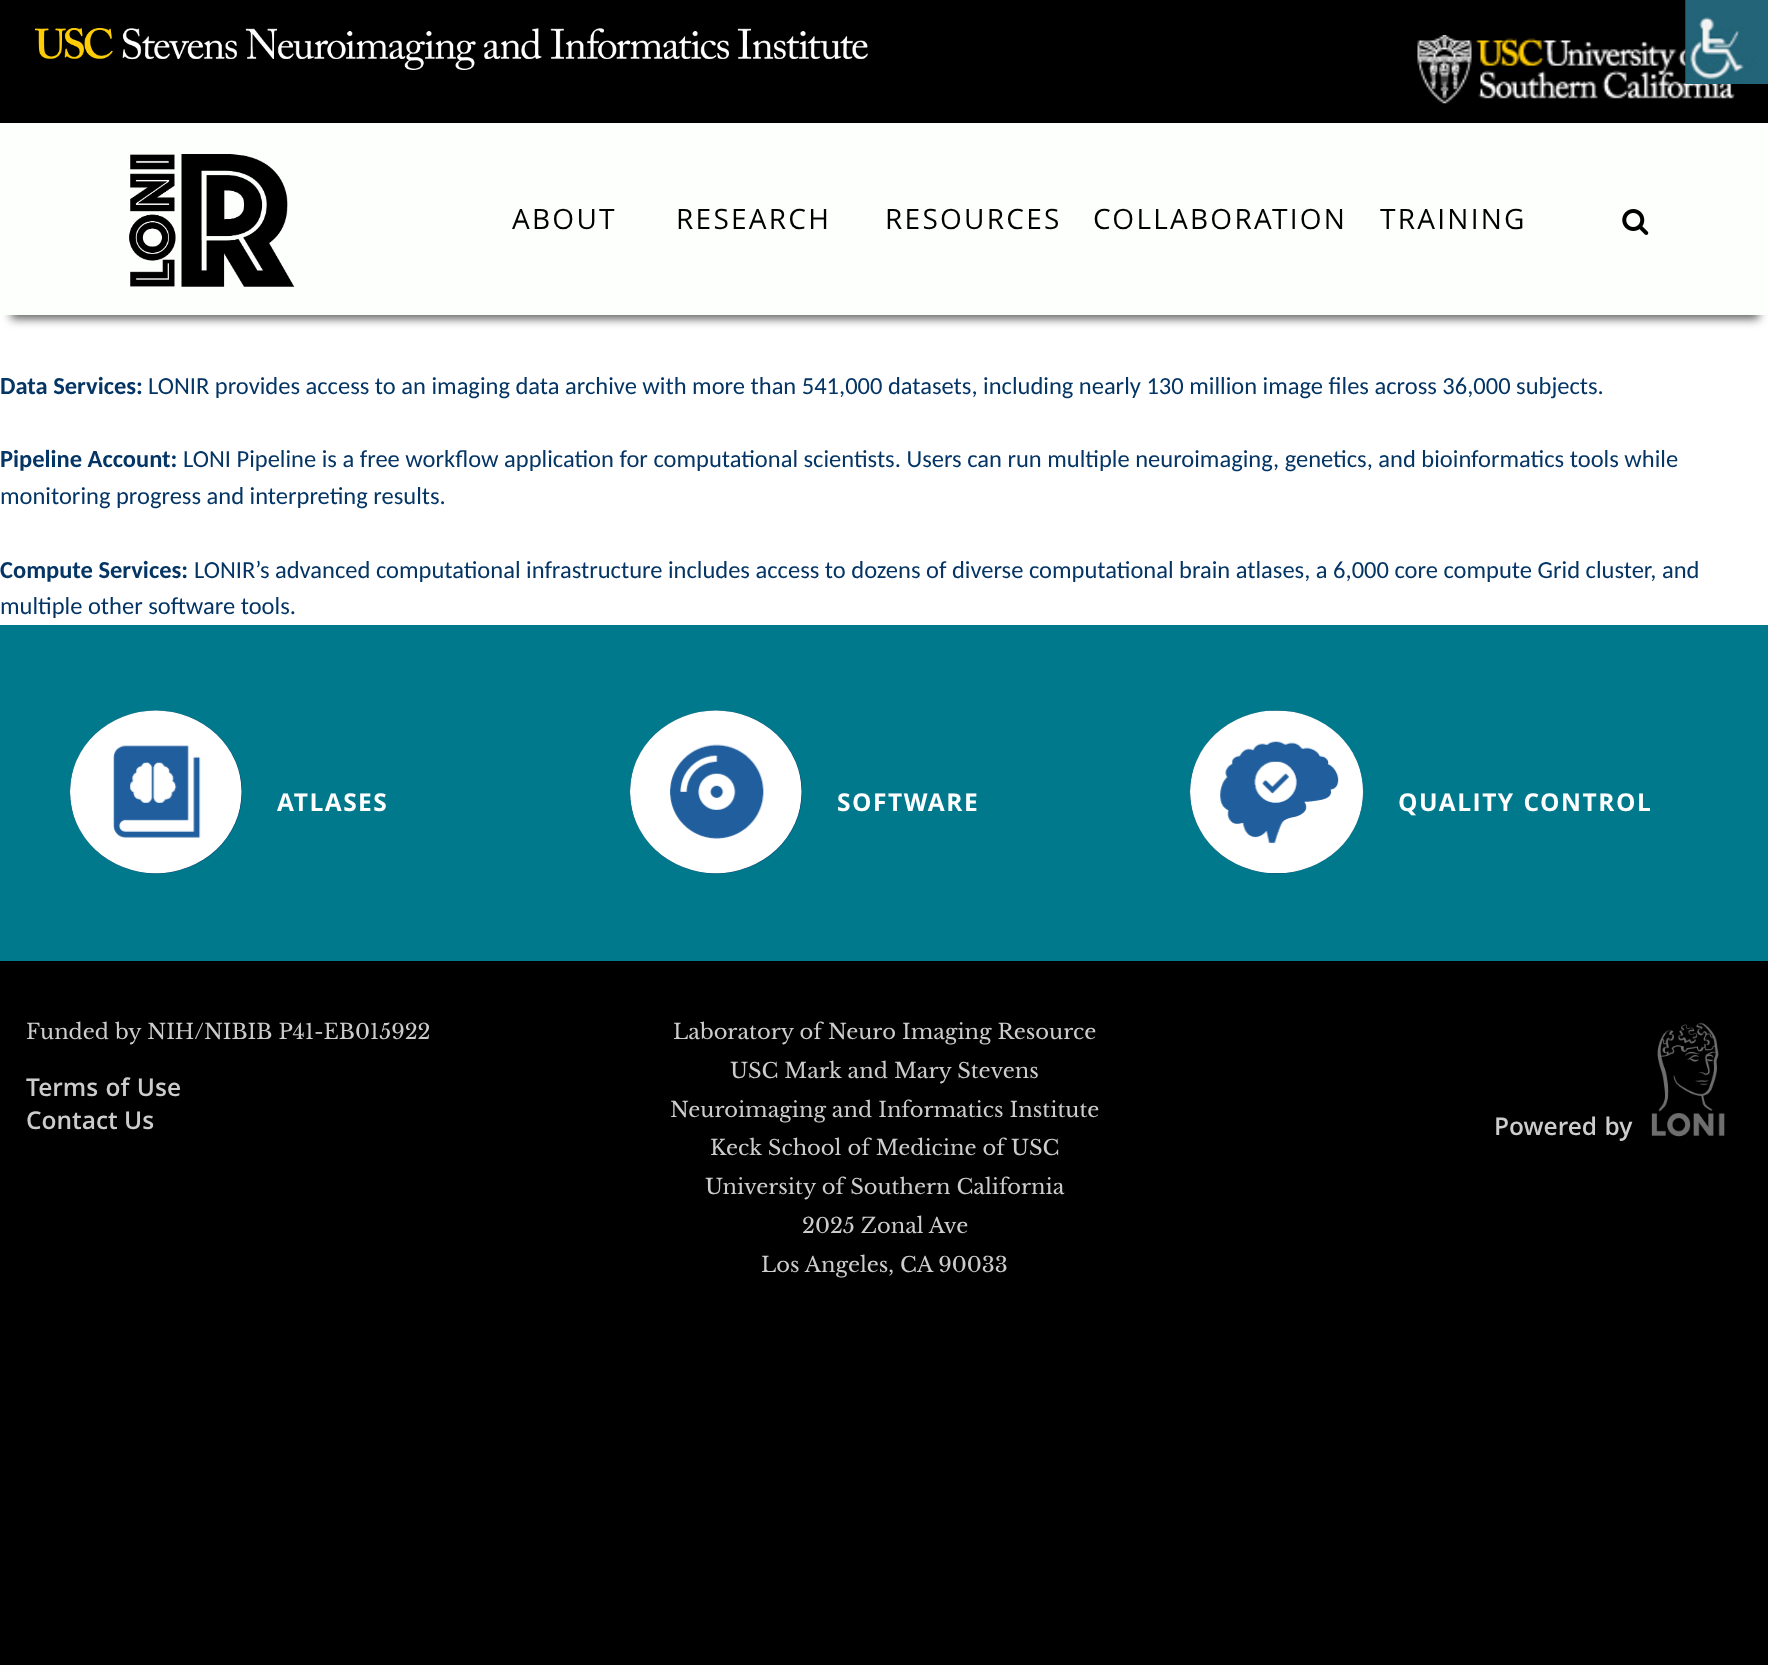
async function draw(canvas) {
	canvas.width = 1768;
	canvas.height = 1665;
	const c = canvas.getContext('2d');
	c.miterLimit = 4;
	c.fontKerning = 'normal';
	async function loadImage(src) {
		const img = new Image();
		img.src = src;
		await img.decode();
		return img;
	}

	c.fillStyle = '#000';
	c.fillRect(0, 0, 1768, 1665);
	c.drawImage(await loadImage('img3.png'), 1417, 35, 318, 69);
	c.drawImage(await loadImage('img1.png'), 1685, 0, 83, 84);
	c.drawImage(await loadImage('img2.png'), 35, 28, 833, 42);
	c.fillStyle = '#fff';
	c.fillRect(0, 315, 1768, 310);
	c.fillStyle = '#646464';
	c.filter = 'blur(5px)';
	c.beginPath();
	c.rect(11, 147, 1748, 172);
	c.fill();
	c.filter = 'none';
	c.fillStyle = '#fdfffc';
	c.fillRect(0, 123, 1768, 192);
	c.drawImage(await loadImage('img4.png'), 129, 154, 166, 133);
	c.letterSpacing = '2.25px';
	c.font = '28px Open Sans';
	c.fillStyle = '#000';
	for (const [text, x, y] of [
		['ABOUT', 512, 229],
		['RESEARCH', 676, 229],
		['RESOURCES', 885, 229],
		['COLLABORATION', 1093, 229],
		['TRAINING', 1380, 229],
	]) {
		c.fillText(text, x, y);
	}
	c.drawImage(await loadImage('img5.png'), 1622, 209, 27, 26);
	c.letterSpacing = '0px';
	c.font = 'bold 24.5px Carlito';
	c.fillStyle = '#043565';
	c.fillText('Data Services:', 0, 394);
	c.font = '24.5px Carlito';
	c.fillText('LONIR provides access to an imaging data archive with more than 541,000 datasets, including nearly 130 million image files across 36,000 subjects.', 148, 394);
	c.font = 'bold 24.5px Carlito';
	c.fillText('Pipeline Account:', 0, 467);
	c.font = '24.5px Carlito';
	c.fillText('LONI Pipeline is a free workflow application for computational scientists. Users can run multiple neuroimaging, genetics, and bioinformatics tools while', 183, 467);
	c.fillText('monitoring progress and interpreting results.', 0, 504);
	c.font = 'bold 24.5px Carlito';
	c.fillText('Compute Services:', 0, 578);
	c.font = '24.5px Carlito';
	c.fillText('LONIR’s advanced computational infrastructure includes access to dozens of diverse computational brain atlases, a 6,000 core compute Grid cluster, and', 194, 578);
	c.fillText('multiple other software tools.', 0, 614);
	c.fillStyle = '#00798c';
	c.fillRect(0, 625, 1768, 336);
	c.fillStyle = '#043565';
	c.beginPath();
	c.ellipse(156, 792, 86, 81.5, 0, 0, 2 * Math.PI);
	c.fill();
	c.drawImage(await loadImage('img6.png'), 69, 710, 173, 164);
	c.letterSpacing = '1.5px';
	c.font = 'bold 24.5px Open Sans';
	c.fillStyle = '#fff';
	c.fillText('ATLASES', 277, 811);
	c.fillStyle = '#043565';
	c.beginPath();
	c.ellipse(716, 792, 86, 81.5, 0, 0, 2 * Math.PI);
	c.fill();
	c.drawImage(await loadImage('img7.png'), 629, 710, 173, 164);
	c.fillStyle = '#fff';
	c.fillText('SOFTWARE', 837, 811);
	c.fillStyle = '#043565';
	c.beginPath();
	c.ellipse(1276.5, 792, 86.5, 81.5, 0, 0, 2 * Math.PI);
	c.fill();
	c.drawImage(await loadImage('img8.png'), 1190, 710, 174, 164);
	c.wordSpacing = '1px';
	c.fillStyle = '#fff';
	c.fillText('QUALITY CONTROL', 1398, 811);
	c.letterSpacing = '0px';
	c.wordSpacing = '0px';
	c.font = '21px Libre Baskerville';
	c.fillStyle = '#ccc';
	c.fillText('Funded by NIH/NIBIB P41-EB015922', 26, 1039);
	c.wordSpacing = '1px';
	c.font = '600 24.5px Open Sans';
	c.fillText('Terms of Use', 26, 1096);
	c.wordSpacing = '0px';
	c.fillText('Contact Us', 26, 1129);
	c.font = '21px Libre Baskerville';
	for (const [text, x, y] of [
		['Laboratory of Neuro Imaging Resource', 673, 1039],
		['USC Mark and Mary Stevens', 730, 1078],
		['Neuroimaging and Informatics Institute', 670, 1117],
		['Keck School of Medicine of USC', 710, 1155],
		['University of Southern California', 705, 1194],
		['2025 Zonal Ave', 802, 1233],
		['Los Angeles, CA 90033', 761, 1272],
	]) {
		c.fillText(text, x, y);
	}
	c.wordSpacing = '1px';
	c.font = '600 24.5px Open Sans';
	c.fillText('Powered by', 1494, 1135);
	c.drawImage(await loadImage('img9.png'), 1651, 1022, 74, 115);
}

draw(document.querySelector('canvas'));
